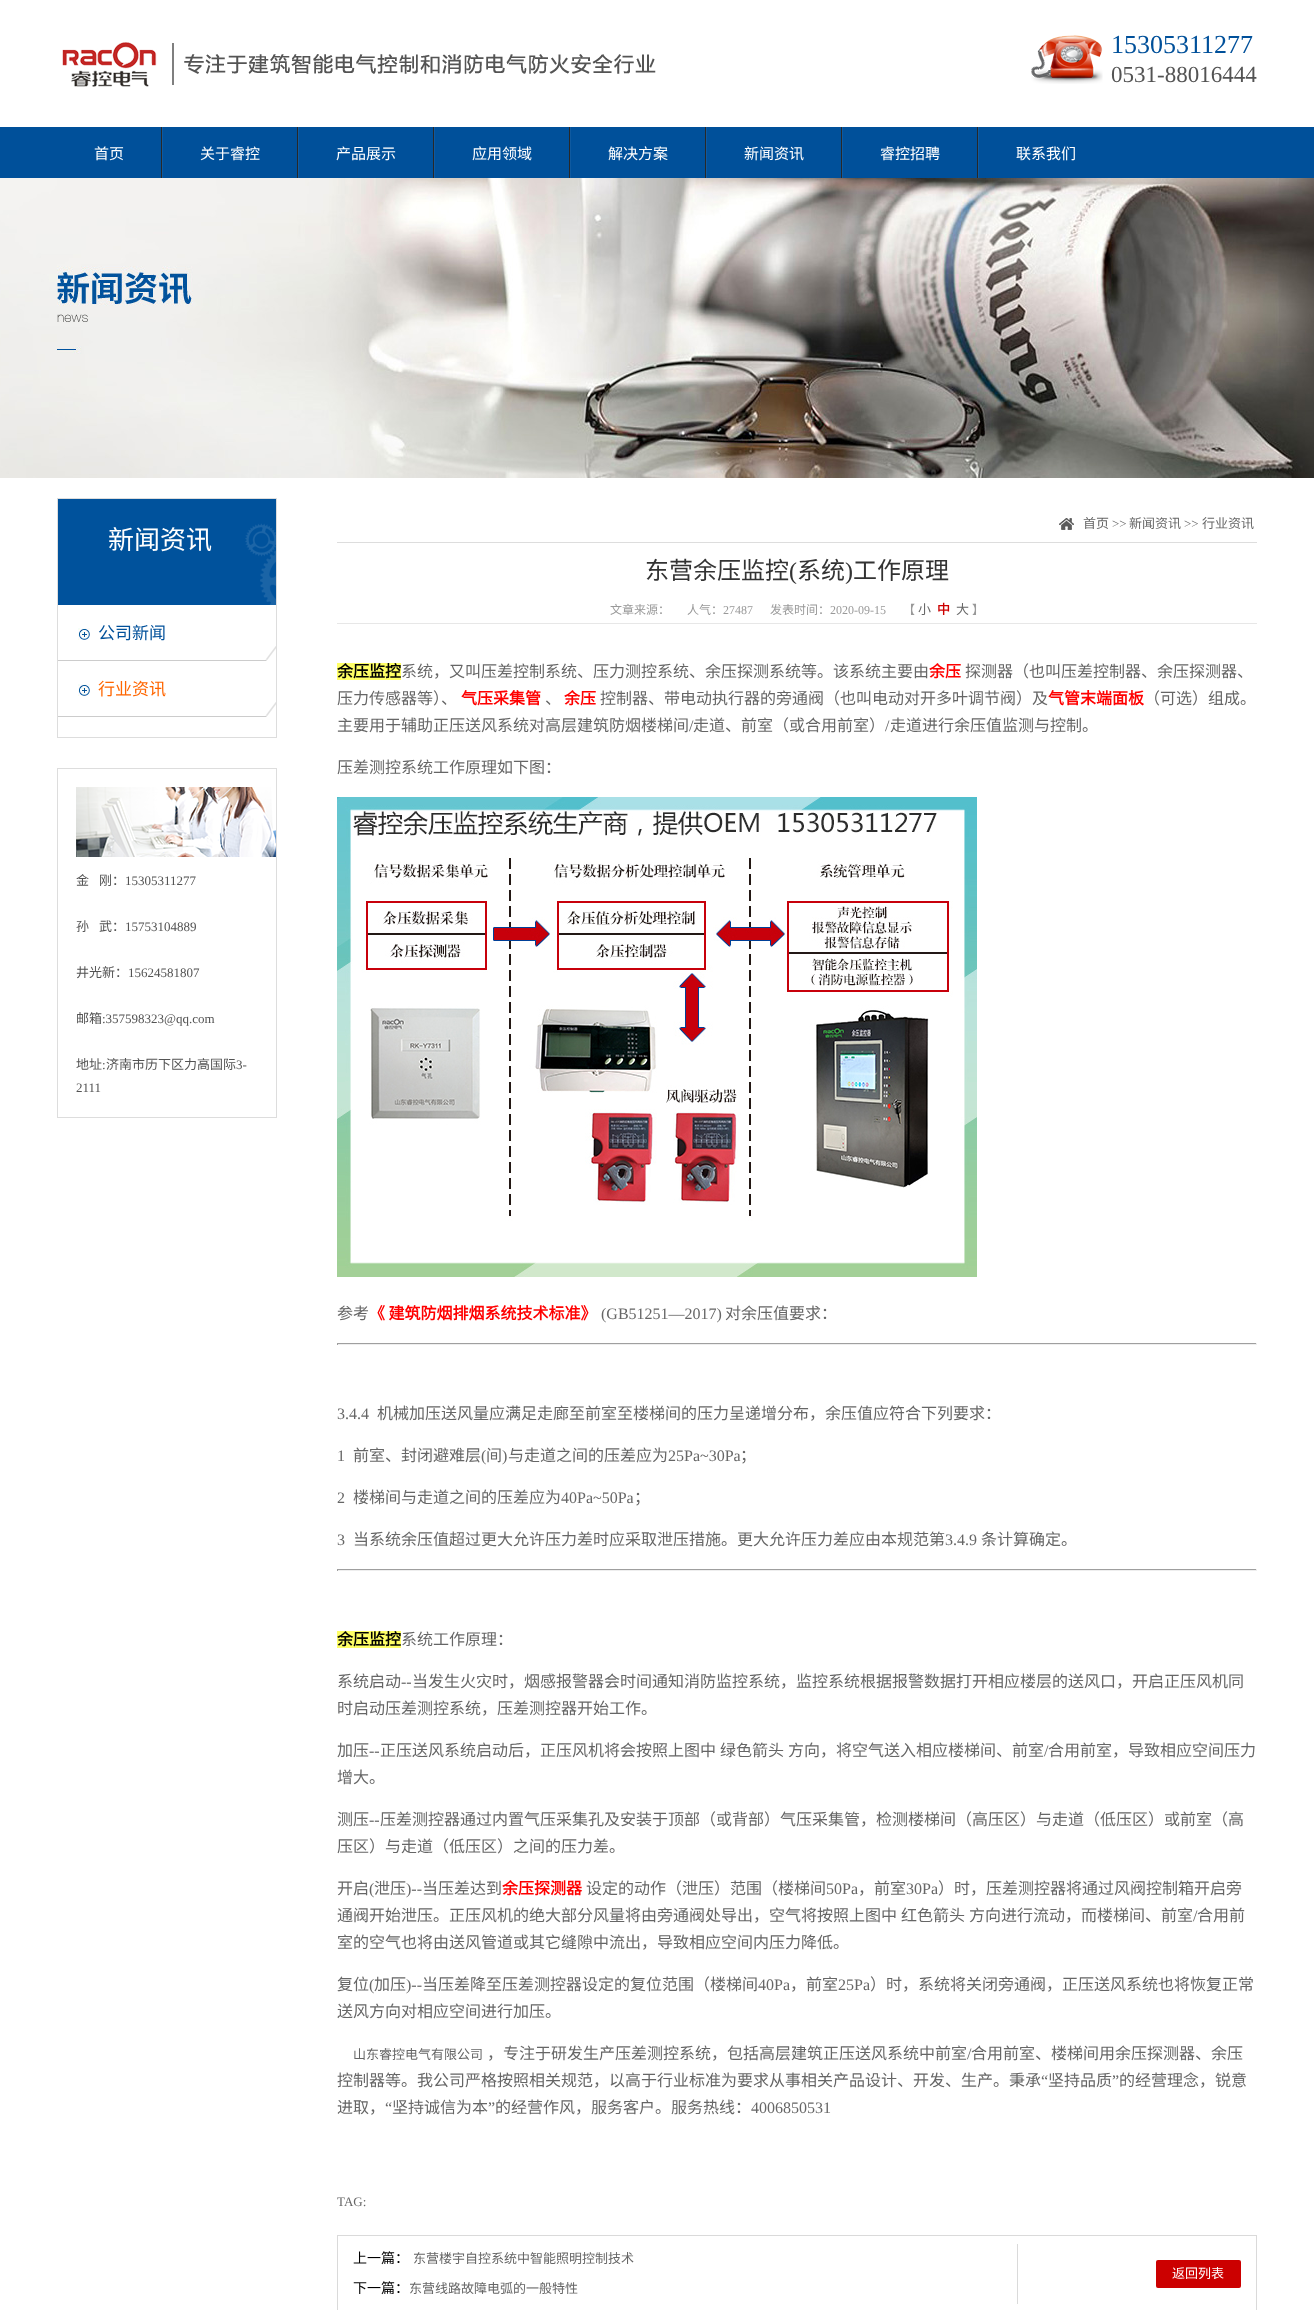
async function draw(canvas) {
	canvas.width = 1314;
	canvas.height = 2310;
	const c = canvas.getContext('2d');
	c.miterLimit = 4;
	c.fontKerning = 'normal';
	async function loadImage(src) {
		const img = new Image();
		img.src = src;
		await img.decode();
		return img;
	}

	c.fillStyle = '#fff';
	c.fillRect(0, 0, 1314, 2310);
	c.drawImage(await loadImage('img1.png'), 62, 42, 594, 45);
	c.drawImage(await loadImage('img2.png'), 1031, 35, 72, 49);
	c.font = '26px Liberation Serif';
	c.fillStyle = '#00509a';
	c.fillText('15305311277', 1111, 53);
	c.font = '23px Liberation Serif';
	c.fillStyle = '#535353';
	c.fillText('0531-88016444', 1111, 82);
	c.fillStyle = '#00509a';
	c.fillRect(0, 127, 1314, 51);
	c.fillStyle = '#282828';
	c.fillRect(161, 127, 1, 51);
	c.font = '15px Noto Sans CJK SC';
	c.fillStyle = '#fff';
	c.fillText('首页', 94, 159);
	c.fillStyle = '#282828';
	c.fillRect(297, 127, 1, 51);
	c.fillStyle = '#0f5aa0';
	c.fillRect(162, 127, 1, 51);
	c.fillStyle = '#fff';
	c.fillText('关于睿控', 200, 159);
	c.fillStyle = '#282828';
	c.fillRect(433, 127, 1, 51);
	c.fillStyle = '#0f5aa0';
	c.fillRect(298, 127, 1, 51);
	c.fillStyle = '#fff';
	c.fillText('产品展示', 336, 159);
	c.fillStyle = '#282828';
	c.fillRect(569, 127, 1, 51);
	c.fillStyle = '#0f5aa0';
	c.fillRect(434, 127, 1, 51);
	c.fillStyle = '#fff';
	c.fillText('应用领域', 472, 159);
	c.fillStyle = '#282828';
	c.fillRect(705, 127, 1, 51);
	c.fillStyle = '#0f5aa0';
	c.fillRect(570, 127, 1, 51);
	c.fillStyle = '#fff';
	c.fillText('解决方案', 608, 159);
	c.fillStyle = '#282828';
	c.fillRect(841, 127, 1, 51);
	c.fillStyle = '#0f5aa0';
	c.fillRect(706, 127, 1, 51);
	c.fillStyle = '#fff';
	c.fillText('新闻资讯', 744, 159);
	c.fillStyle = '#282828';
	c.fillRect(977, 127, 1, 51);
	c.fillStyle = '#0f5aa0';
	c.fillRect(842, 127, 1, 51);
	c.fillStyle = '#fff';
	c.fillText('睿控招聘', 880, 159);
	c.fillStyle = '#0f5aa0';
	c.fillRect(978, 127, 1, 51);
	c.fillStyle = '#fff';
	c.fillText('联系我们', 1016, 159);
	c.drawImage(await loadImage('img3.png'), 0, 178, 1314, 300);
	c.strokeStyle = '#ddd';
	c.strokeRect(57.5, 498.5, 219, 239);
	c.drawImage(await loadImage('img4.png'), 58, 499, 218, 106);
	c.font = '26px Noto Sans CJK SC';
	c.fillText('新闻资讯', 108, 549);
	c.drawImage(await loadImage('img5.png'), 58, 646, 218, 15);
	c.drawImage(await loadImage('img6.png'), 78, 628, 12, 12);
	c.font = '17px Noto Sans CJK SC';
	c.fillStyle = '#00509a';
	c.fillText('公司新闻', 98, 639);
	c.drawImage(await loadImage('img5.png'), 58, 702, 218, 15);
	c.drawImage(await loadImage('img6.png'), 78, 684, 12, 12);
	c.fillStyle = '#f60';
	c.fillText('行业资讯', 98, 695);
	c.strokeRect(57.5, 768.5, 219, 349);
	c.drawImage(await loadImage('img7.png'), 76, 787, 200, 70);
	c.font = '13px Noto Sans CJK SC';
	c.fillStyle = '#535353';
	c.fillText('金', 76, 885);
	c.fillText('刚：', 99, 885);
	c.font = '13px Liberation Serif';
	c.fillText('15305311277', 125, 885);
	c.font = '13px Noto Sans CJK SC';
	c.fillText('孙', 76, 931);
	c.fillText('武：', 99, 931);
	c.font = '13px Liberation Serif';
	c.fillText('15753104889', 125, 931);
	c.font = '13px Noto Sans CJK SC';
	c.fillText('井光新：', 76, 977);
	c.font = '13px Liberation Serif';
	c.fillText('15624581807', 128, 977);
	c.font = '13px Noto Sans CJK SC';
	c.fillText('邮箱', 76, 1023);
	c.font = '13px Liberation Serif';
	c.fillText(':357598323@qq.com', 102, 1023);
	c.font = '13px Noto Sans CJK SC';
	c.fillText('地址', 76, 1069);
	c.font = '13px Liberation Serif';
	c.fillText(':', 102, 1069);
	c.font = '13px Noto Sans CJK SC';
	c.fillText('济南市历下区力高国际', 106, 1069);
	c.font = '13px Liberation Serif';
	c.fillText('3-', 236, 1069);
	c.fillText('2111', 76, 1092);
	c.fillStyle = '#ddd';
	c.fillRect(337, 542, 920, 1);
	c.drawImage(await loadImage('img8.png'), 1059, 518, 15, 12);
	c.font = '13px Noto Sans CJK SC';
	c.fillStyle = '#666';
	c.fillText('首页', 1083, 528);
	c.font = '13px Liberation Serif';
	c.fillText('>>', 1112, 528);
	c.font = '13px Noto Sans CJK SC';
	c.fillText('新闻资讯', 1129, 528);
	c.font = '13px Liberation Serif';
	c.fillText('>>', 1184, 528);
	c.font = '13px Noto Sans CJK SC';
	c.fillText('行业资讯', 1202, 528);
	c.font = '24px Noto Sans CJK SC';
	c.fillStyle = '#333';
	c.fillText('东营余压监控', 645, 579);
	c.font = '24px Liberation Serif';
	c.fillText('(', 789, 579);
	c.font = '24px Noto Sans CJK SC';
	c.fillText('系统', 797, 579);
	c.font = '24px Liberation Serif';
	c.fillText(')', 845, 579);
	c.font = '24px Noto Sans CJK SC';
	c.fillText('工作原理', 853, 579);
	c.fillStyle = '#e7e7e7';
	c.fillRect(337, 623, 920, 1);
	c.font = '12px Noto Sans CJK SC';
	c.fillStyle = '#999';
	c.fillText('文章来源：', 610, 614);
	c.fillText('人气：', 687, 614);
	c.font = '12px Liberation Serif';
	c.fillText('27487', 723, 614);
	c.font = '12px Noto Sans CJK SC';
	c.fillText('发表时间：', 770, 614);
	c.font = '12px Liberation Serif';
	c.fillText('2020-09-15', 830, 614);
	c.font = '12px Noto Sans CJK SC';
	c.fillText('【', 903, 614);
	c.font = '13px Noto Sans CJK SC';
	c.fillStyle = '#666';
	c.fillText('小', 918, 614);
	c.font = 'bold 13px Noto Sans CJK SC';
	c.fillStyle = '#c00';
	c.fillText('中', 937, 614);
	c.font = '13px Noto Sans CJK SC';
	c.fillStyle = '#666';
	c.fillText('大', 956, 614);
	c.font = '12px Noto Sans CJK SC';
	c.fillStyle = '#999';
	c.fillText('】', 972, 614);
	c.fillStyle = '#ff6';
	c.fillRect(337, 663, 64, 17);
	c.font = 'bold 16px Noto Sans CJK SC';
	c.fillStyle = '#000';
	c.fillText('余压监控', 337, 677);
	c.font = '16px Noto Sans CJK SC';
	c.fillStyle = '#666';
	c.fillText('系统，又叫压差控制系统、压力测控系统、余压探测系统等。该系统主要由', 401, 677);
	c.font = 'bold 16px Noto Sans CJK SC';
	c.fillStyle = '#f00';
	c.fillText('余压', 929, 677);
	c.font = '16px Noto Sans CJK SC';
	c.fillStyle = '#666';
	c.fillText('探测器（也叫压差控制器、余压探测器、', 965, 677);
	c.fillText('压力传感器等）、', 337, 704);
	c.font = 'bold 16px Noto Sans CJK SC';
	c.fillStyle = '#f00';
	c.fillText('气压采集管', 461, 704);
	c.font = '16px Noto Sans CJK SC';
	c.fillStyle = '#666';
	c.fillText('、', 545, 704);
	c.font = 'bold 16px Noto Sans CJK SC';
	c.fillStyle = '#f00';
	c.fillText('余压', 564, 704);
	c.font = '16px Noto Sans CJK SC';
	c.fillStyle = '#666';
	c.fillText('控制器、带电动执行器的旁通阀（也叫电动对开多叶调节阀）及', 600, 704);
	c.font = 'bold 16px Noto Sans CJK SC';
	c.fillStyle = '#f00';
	c.fillText('气管末端面板', 1048, 704);
	c.font = '16px Noto Sans CJK SC';
	c.fillStyle = '#666';
	c.fillText('（可选）组成。', 1144, 704);
	c.fillText('主要用于辅助正压送风系统对高层建筑防烟楼梯间', 337, 731);
	c.font = '16px Liberation Serif';
	c.fillText('/', 689, 731);
	c.font = '16px Noto Sans CJK SC';
	c.fillText('走道、前室（或合用前室）', 693, 731);
	c.font = '16px Liberation Serif';
	c.fillText('/', 885, 731);
	c.font = '16px Noto Sans CJK SC';
	c.fillText('走道进行余压值监测与控制。', 890, 731);
	c.fillText('压差测控系统工作原理如下图：', 337, 773);
	c.drawImage(await loadImage('img9.png'), 337, 797, 640, 480);
	c.fillText('参考', 337, 1319);
	c.font = 'bold 16px Noto Sans CJK SC';
	c.fillStyle = '#f00';
	c.fillText('《 建筑防烟排烟系统技术标准》', 369, 1319);
	c.font = '16px Liberation Serif';
	c.fillStyle = '#666';
	c.fillText('(GB51251—2017)', 601, 1319);
	c.font = '16px Noto Sans CJK SC';
	c.fillText('对余压值要求：', 725, 1319);
	for (const [x, y, w, h, color] of [
		[337, 1343, 920, 1, '#9f9f9f'],
		[1256, 1343, 1, 2, '#eee'],
		[337, 1344, 920, 1, '#eee'],
		[337, 1343, 1, 2, '#9f9f9f'],
	]) {
		c.fillStyle = color;
		c.fillRect(x, y, w, h);
	}
	c.font = '16px Liberation Serif';
	c.fillStyle = '#666';
	c.fillText('3.4.4', 337, 1419);
	c.font = '16px Noto Sans CJK SC';
	c.fillText('机械加压送风量应满足走廊至前室至楼梯间的压力呈递增分布，余压值应符合下列要求：', 377, 1419);
	c.font = '16px Liberation Serif';
	c.fillText('1', 337, 1461);
	c.font = '16px Noto Sans CJK SC';
	c.fillText('前室、封闭避难层', 353, 1461);
	c.font = '16px Liberation Serif';
	c.fillText('(', 481, 1461);
	c.font = '16px Noto Sans CJK SC';
	c.fillText('间', 486, 1461);
	c.font = '16px Liberation Serif';
	c.fillText(')', 502, 1461);
	c.font = '16px Noto Sans CJK SC';
	c.fillText('与走道之间的压差应为', 508, 1461);
	c.font = '16px Liberation Serif';
	c.fillText('25Pa~30Pa', 668, 1461);
	c.font = '16px Noto Sans CJK SC';
	c.fillText('；', 740, 1461);
	c.font = '16px Liberation Serif';
	c.fillText('2', 337, 1503);
	c.font = '16px Noto Sans CJK SC';
	c.fillText('楼梯间与走道之间的压差应为', 353, 1503);
	c.font = '16px Liberation Serif';
	c.fillText('40Pa~50Pa', 561, 1503);
	c.font = '16px Noto Sans CJK SC';
	c.fillText('；', 634, 1503);
	c.font = '16px Liberation Serif';
	c.fillText('3', 337, 1545);
	c.font = '16px Noto Sans CJK SC';
	c.fillText('当系统余压值超过更大允许压力差时应采取泄压措施。更大允许压力差应由本规范第', 353, 1545);
	c.font = '16px Liberation Serif';
	c.fillText('3.4.9', 945, 1545);
	c.font = '16px Noto Sans CJK SC';
	c.fillText('条计算确定。', 981, 1545);
	for (const [x, y, w, h, color] of [
		[337, 1569, 920, 1, '#9f9f9f'],
		[1256, 1569, 1, 2, '#eee'],
		[337, 1570, 920, 1, '#eee'],
		[337, 1569, 1, 2, '#9f9f9f'],
		[337, 1631, 64, 17, '#ff6'],
	]) {
		c.fillStyle = color;
		c.fillRect(x, y, w, h);
	}
	c.font = 'bold 16px Noto Sans CJK SC';
	c.fillStyle = '#000';
	c.fillText('余压监控', 337, 1645);
	c.font = '16px Noto Sans CJK SC';
	c.fillStyle = '#666';
	c.fillText('系统工作原理：', 401, 1645);
	c.fillText('系统启动', 337, 1687);
	c.font = '16px Liberation Serif';
	c.fillText('--', 401, 1687);
	c.font = '16px Noto Sans CJK SC';
	for (const [text, x, y] of [
		['当发生火灾时，烟感报警器会时间通知消防监控系统，监控系统根据报警数据打开相应楼层的送风口，开启正压风机同', 412, 1687],
		['时启动压差测控系统，压差测控器开始工作。', 337, 1714],
		['加压', 337, 1756],
	]) {
		c.fillText(text, x, y);
	}
	c.font = '16px Liberation Serif';
	c.fillText('--', 369, 1756);
	c.font = '16px Noto Sans CJK SC';
	for (const [text, x, y] of [
		['正压送风系统启动后，正压风机将会按照上图中', 380, 1756],
		['绿色箭头', 720, 1756],
		['方向，将空气送入相应楼梯间、前室', 788, 1756],
	]) {
		c.fillText(text, x, y);
	}
	c.font = '16px Liberation Serif';
	c.fillText('/', 1044, 1756);
	c.font = '16px Noto Sans CJK SC';
	for (const [text, x, y] of [
		['合用前室，导致相应空间压力', 1048, 1756],
		['增大。', 337, 1783],
		['测压', 337, 1825],
	]) {
		c.fillText(text, x, y);
	}
	c.font = '16px Liberation Serif';
	c.fillText('--', 369, 1825);
	c.font = '16px Noto Sans CJK SC';
	for (const [text, x, y] of [
		['压差测控器通过内置气压采集孔及安装于顶部（或背部）气压采集管，检测楼梯间（高压区）与走道（低压区）或前室（高', 380, 1825],
		['压区）与走道（低压区）之间的压力差。', 337, 1852],
		['开启', 337, 1894],
	]) {
		c.fillText(text, x, y);
	}
	c.font = '16px Liberation Serif';
	c.fillText('(', 369, 1894);
	c.font = '16px Noto Sans CJK SC';
	c.fillText('泄压', 374, 1894);
	c.font = '16px Liberation Serif';
	c.fillText(')--', 406, 1894);
	c.font = '16px Noto Sans CJK SC';
	c.fillText('当压差达到', 422, 1894);
	c.font = 'bold 16px Noto Sans CJK SC';
	c.fillStyle = '#f00';
	c.fillText('余压探测器', 502, 1894);
	c.font = '16px Noto Sans CJK SC';
	c.fillStyle = '#666';
	c.fillText('设定的动作（泄压）范围（楼梯间', 586, 1894);
	c.font = '16px Liberation Serif';
	c.fillText('50Pa', 826, 1894);
	c.font = '16px Noto Sans CJK SC';
	c.fillText('，前室', 858, 1894);
	c.font = '16px Liberation Serif';
	c.fillText('30Pa', 906, 1894);
	c.font = '16px Noto Sans CJK SC';
	for (const [text, x, y] of [
		['）时，压差测控器将通过风阀控制箱开启旁', 938, 1894],
		['通阀开始泄压。正压风机的绝大部分风量将由旁通阀处导出，空气将按照上图中', 337, 1921],
		['红色箭头', 901, 1921],
		['方向进行流动，而楼梯间、前室', 969, 1921],
	]) {
		c.fillText(text, x, y);
	}
	c.font = '16px Liberation Serif';
	c.fillText('/', 1193, 1921);
	c.font = '16px Noto Sans CJK SC';
	for (const [text, x, y] of [
		['合用前', 1197, 1921],
		['室的空气也将由送风管道或其它缝隙中流出，导致相应空间内压力降低。', 337, 1948],
		['复位', 337, 1990],
	]) {
		c.fillText(text, x, y);
	}
	c.font = '16px Liberation Serif';
	c.fillText('(', 369, 1990);
	c.font = '16px Noto Sans CJK SC';
	c.fillText('加压', 374, 1990);
	c.font = '16px Liberation Serif';
	c.fillText(')--', 406, 1990);
	c.font = '16px Noto Sans CJK SC';
	c.fillText('当压差降至压差测控器设定的复位范围（楼梯间', 422, 1990);
	c.font = '16px Liberation Serif';
	c.fillText('40Pa', 758, 1990);
	c.font = '16px Noto Sans CJK SC';
	c.fillText('，前室', 790, 1990);
	c.font = '16px Liberation Serif';
	c.fillText('25Pa', 838, 1990);
	c.font = '16px Noto Sans CJK SC';
	c.fillText('）时，系统将关闭旁通阀，正压送风系统也将恢复正常', 870, 1990);
	c.fillText('送风方向对相应空间进行加压。', 337, 2017);
	c.font = '13px Noto Sans CJK SC';
	c.fillText('山东睿控电气有限公司', 353, 2059);
	c.font = '16px Noto Sans CJK SC';
	c.fillText('，专注于研发生产压差测控系统，包括高层建筑正压送风系统中前室', 487, 2059);
	c.font = '16px Liberation Serif';
	c.fillText('/', 967, 2059);
	c.font = '16px Noto Sans CJK SC';
	c.fillText('合用前室、楼梯间用余压探测器、余压', 971, 2059);
	c.fillText('控制器等。我公司严格按照相关规范，以高于行业标准为要求从事相关产品设计、开发、生产。秉承', 337, 2086);
	c.font = '16px Liberation Serif';
	c.fillText('“', 1041, 2086);
	c.font = '16px Noto Sans CJK SC';
	c.fillText('坚持品质', 1048, 2086);
	c.font = '16px Liberation Serif';
	c.fillText('”', 1112, 2086);
	c.font = '16px Noto Sans CJK SC';
	c.fillText('的经营理念，锐意', 1119, 2086);
	c.fillText('进取，', 337, 2113);
	c.font = '16px Liberation Serif';
	c.fillText('“', 385, 2113);
	c.font = '16px Noto Sans CJK SC';
	c.fillText('坚持诚信为本', 392, 2113);
	c.font = '16px Liberation Serif';
	c.fillText('”', 488, 2113);
	c.font = '16px Noto Sans CJK SC';
	c.fillText('的经营作风，服务客户。服务热线：', 495, 2113);
	c.font = '16px Liberation Serif';
	c.fillText('4006850531', 751, 2113);
	c.font = '13px Liberation Serif';
	c.fillText('TAG:', 337, 2206);
	c.strokeStyle = '#dadada';
	c.strokeRect(337.5, 2235.5, 919, 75);
	c.fillStyle = '#dadada';
	c.fillRect(1017, 2244, 1, 60);
	c.font = '14px Noto Sans CJK SC';
	c.fillStyle = '#000';
	c.fillText('上一篇：', 353, 2263);
	c.font = '13px Noto Sans CJK SC';
	c.fillStyle = '#666';
	c.fillText('东营楼宇自控系统中智能照明控制技术', 413, 2263);
	c.font = '14px Noto Sans CJK SC';
	c.fillStyle = '#000';
	c.fillText('下一篇：', 353, 2293);
	c.font = '13px Noto Sans CJK SC';
	c.fillStyle = '#666';
	c.fillText('东营线路故障电弧的一般特性', 409, 2293);
	c.fillStyle = '#c00';
	c.beginPath();
	c.roundRect(1156, 2260, 85, 28, 2);
	c.fill();
	c.fillStyle = '#fff';
	c.fillText('返回列表', 1172, 2278);
}

draw(document.querySelector('canvas'));
